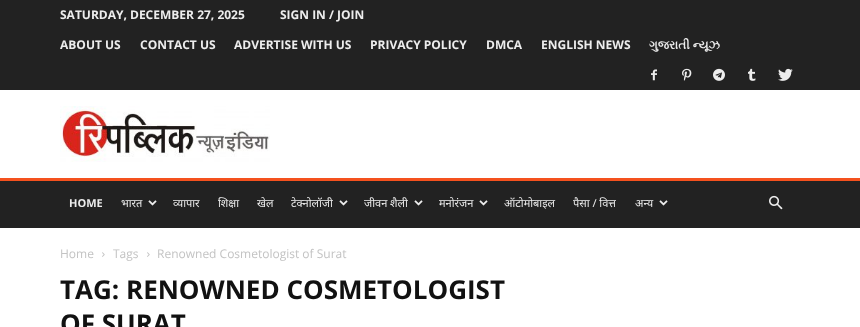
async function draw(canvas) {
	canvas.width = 860;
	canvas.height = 327;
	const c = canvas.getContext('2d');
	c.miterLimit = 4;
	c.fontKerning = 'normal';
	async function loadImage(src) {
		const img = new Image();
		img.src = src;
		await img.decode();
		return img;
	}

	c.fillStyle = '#fff';
	c.fillRect(0, 0, 860, 327);
	c.fillStyle = '#222';
	c.fillRect(0, 0, 860, 90);
	c.font = 'bold 12px Open Sans';
	c.fillStyle = '#ededed';
	for (const [text, x, y] of [
		['SATURDAY, DECEMBER 27, 2025', 60, 19],
		['SIGN IN / JOIN', 280, 19],
		['ABOUT US', 60, 49],
		['CONTACT US', 140, 49],
		['ADVERTISE WITH US', 234, 49],
		['PRIVACY POLICY', 370, 49],
		['DMCA', 486, 49],
		['ENGLISH NEWS', 541, 49],
	]) {
		c.fillText(text, x, y);
	}
	c.font = 'bold 12px FreeSerif';
	c.fillText('ગુજરાતી ન્યૂઝ', 649, 49);
	c.drawImage(await loadImage('img1.png'), 651, 69, 6, 12);
	c.drawImage(await loadImage('img2.png'), 682, 68, 10, 13);
	c.drawImage(await loadImage('img3.png'), 713, 68, 12, 13);
	c.drawImage(await loadImage('img4.png'), 748, 68, 8, 13);
	c.drawImage(await loadImage('img5.png'), 778, 68, 15, 13);
	c.drawImage(await loadImage('img6.png'), 60, 106, 210, 56);
	c.fillStyle = '#222';
	c.fillRect(0, 181, 860, 47);
	c.fillStyle = '#f4511e';
	c.fillRect(0, 178, 860, 3);
	c.font = 'bold 11px Open Sans';
	c.fillStyle = '#ededed';
	c.fillText('HOME', 69, 207);
	c.font = '11px Noto Sans';
	c.fillText('भारत', 121, 207);
	c.drawImage(await loadImage('img7.png'), 148, 200, 9, 6);
	for (const [text, x, y] of [
		['व्यापार', 173, 207],
		['शिक्षा', 218, 207],
		['खेल', 257, 207],
		['टेक्नोलॉजी', 291, 207],
	]) {
		c.fillText(text, x, y);
	}
	c.drawImage(await loadImage('img7.png'), 339, 200, 9, 6);
	c.fillText('जीवन शैली', 364, 207);
	c.drawImage(await loadImage('img7.png'), 414, 200, 9, 6);
	c.fillText('मनोरंजन', 439, 207);
	c.drawImage(await loadImage('img7.png'), 479, 200, 9, 6);
	for (const [text, x, y] of [
		['ऑटोमोबाइल', 504, 207],
		['पैसा / वित्त', 573, 207],
		['अन्य', 635, 207],
	]) {
		c.fillText(text, x, y);
	}
	c.drawImage(await loadImage('img7.png'), 659, 200, 9, 6);
	c.drawImage(await loadImage('img8.png'), 769, 195, 14, 15);
	c.font = '12px Open Sans';
	c.fillStyle = '#c3c3c3';
	c.fillText('Home', 60, 258);
	c.drawImage(await loadImage('img9.png'), 102, 252, 3, 5);
	c.fillText('Tags', 113, 258);
	c.drawImage(await loadImage('img9.png'), 147, 252, 3, 5);
	c.fillText('Renowned Cosmetologist of Surat', 157, 258);
	c.font = 'bold 26px Open Sans';
	c.fillStyle = '#111';
	c.fillText('TAG: RENOWNED COSMETOLOGIST', 60, 299);
	c.fillText('OF SURAT', 60, 333);
}

draw(document.querySelector('canvas'));
